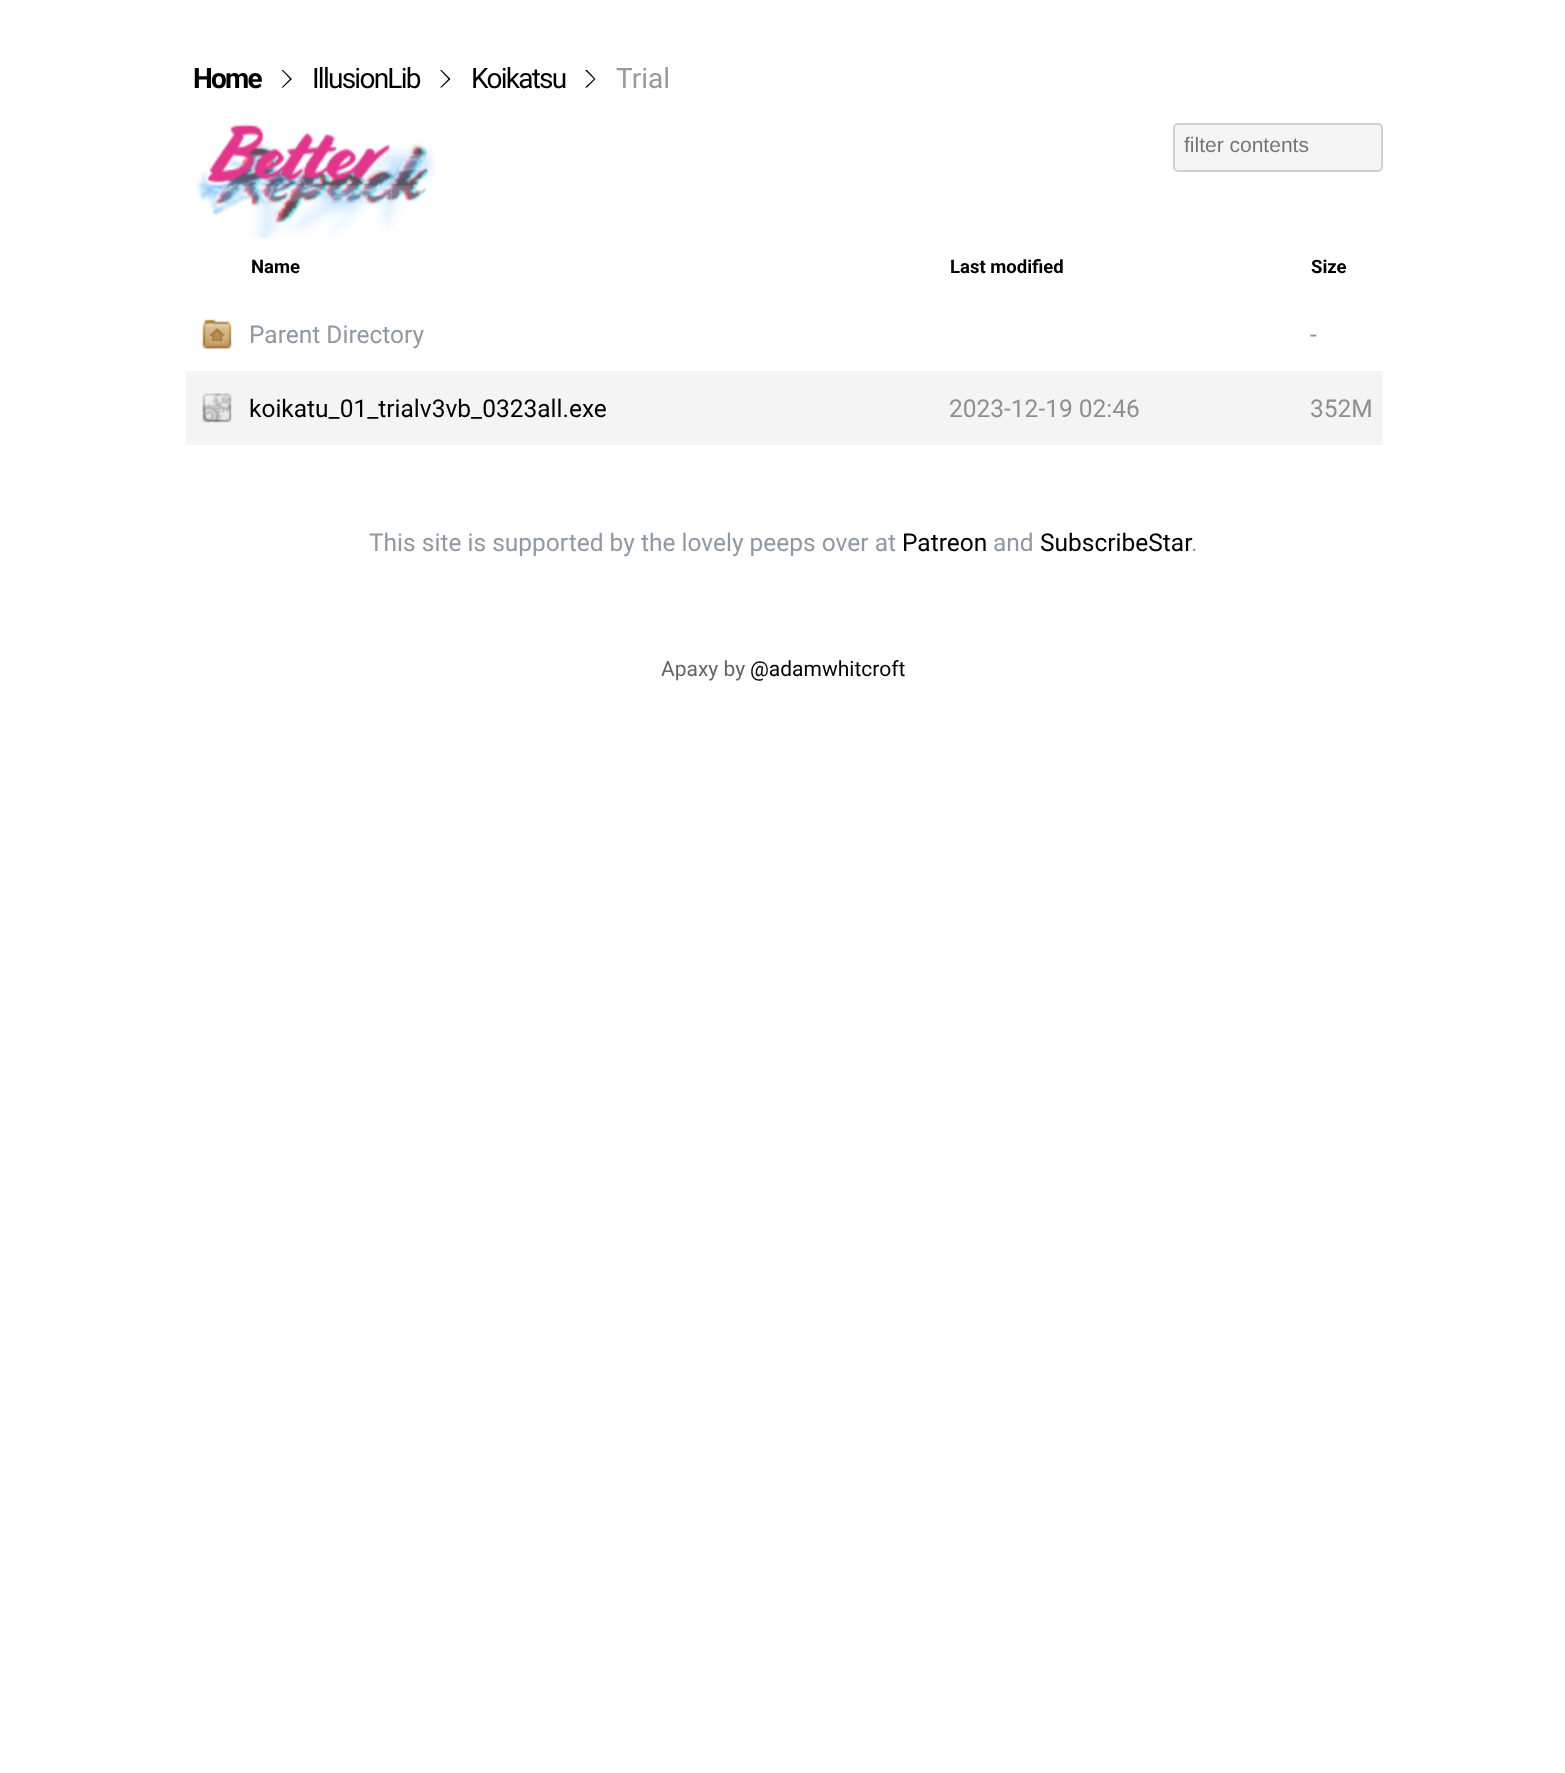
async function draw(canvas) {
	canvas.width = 1565;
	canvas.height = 1773;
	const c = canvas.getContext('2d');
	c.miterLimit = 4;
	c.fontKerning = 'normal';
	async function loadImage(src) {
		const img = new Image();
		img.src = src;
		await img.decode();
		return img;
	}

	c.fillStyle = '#fff';
	c.fillRect(0, 0, 1565, 1773);
	c.letterSpacing = '-1.75px';
	c.font = 'bold 28px Roboto';
	c.fillStyle = '#000';
	c.fillText('Home', 193, 88);
	c.beginPath();
	c.moveTo(281.5, 70);
	c.lineTo(283, 70);
	c.lineTo(292, 79);
	c.lineTo(290, 79);
	c.closePath();
	c.moveTo(290, 79);
	c.lineTo(292, 79);
	c.lineTo(283, 87.5);
	c.lineTo(281.5, 87.5);
	c.closePath();
	c.fill();
	c.font = '28px Roboto';
	c.fillText('IllusionLib', 312, 88);
	c.beginPath();
	c.moveTo(440, 70);
	c.lineTo(441.5, 70);
	c.lineTo(450.5, 79);
	c.lineTo(448.5, 79);
	c.closePath();
	c.moveTo(448.5, 79);
	c.lineTo(450.5, 79);
	c.lineTo(441.5, 87.5);
	c.lineTo(440, 87.5);
	c.closePath();
	c.fill();
	c.fillText('Koikatsu', 471, 88);
	c.beginPath();
	c.moveTo(585, 70);
	c.lineTo(587, 70);
	c.lineTo(595.5, 79);
	c.lineTo(594, 79);
	c.closePath();
	c.moveTo(594, 79);
	c.lineTo(595.5, 79);
	c.lineTo(587, 87.5);
	c.lineTo(585, 87.5);
	c.closePath();
	c.fill();
	c.letterSpacing = '0px';
	c.fillStyle = '#9a9a9a';
	c.fillText('Trial', 616, 88);
	c.drawImage(await loadImage('img1.png'), 196, 123, 240, 116);
	c.fillStyle = '#f5f5f5';
	c.beginPath();
	c.roundRect(1173, 123, 210, 49, 5);
	c.fill();
	c.beginPath();
	c.roundRect(1174, 124, 208, 47, 4);
	c.strokeStyle = '#00000026';
	c.lineWidth = 2;
	c.stroke();
	c.font = '21px Liberation Sans';
	c.fillStyle = '#757575';
	c.fillText('filter contents', 1184, 152);
	c.font = 'bold 18.5px Roboto';
	c.fillStyle = '#000';
	for (const [text, x, y] of [
		['Name', 251, 273],
		['Last modified', 950, 273],
		['Size', 1311, 273],
	]) {
		c.fillText(text, x, y);
	}
	c.drawImage(await loadImage('img2.png'), 202, 319, 30, 30);
	c.font = '24.5px Roboto';
	c.fillStyle = '#9099a3';
	c.fillText('Parent Directory', 249, 343);
	c.fillStyle = '#8f8f8f';
	c.fillText('-', 1310, 343);
	c.fillStyle = '#f4f4f4';
	c.fillRect(186, 371, 1197, 74);
	c.drawImage(await loadImage('img3.png'), 202, 393, 30, 30);
	c.fillStyle = '#000';
	c.fillText('koikatu_01_trialv3vb_0323all.exe', 249, 417);
	c.fillStyle = '#8f8f8f';
	c.fillText('2023-12-19 02:46', 949, 417);
	c.fillText('352M', 1310, 417);
	c.fillStyle = '#9099a3';
	c.fillText('This site is supported by the lovely peeps over at', 369, 551);
	c.fillStyle = '#000';
	c.fillText('Patreon', 902, 551);
	c.fillStyle = '#9099a3';
	c.fillText('and', 993, 551);
	c.fillStyle = '#000';
	c.fillText('SubscribeStar', 1040, 551);
	c.fillStyle = '#9099a3';
	c.fillText('.', 1191, 551);
	c.font = '21px Roboto';
	c.fillStyle = '#61666c';
	c.fillText('Apaxy by', 661, 676);
	c.fillStyle = '#000';
	c.fillText('@adamwhitcroft', 750, 676);
}

draw(document.querySelector('canvas'));
